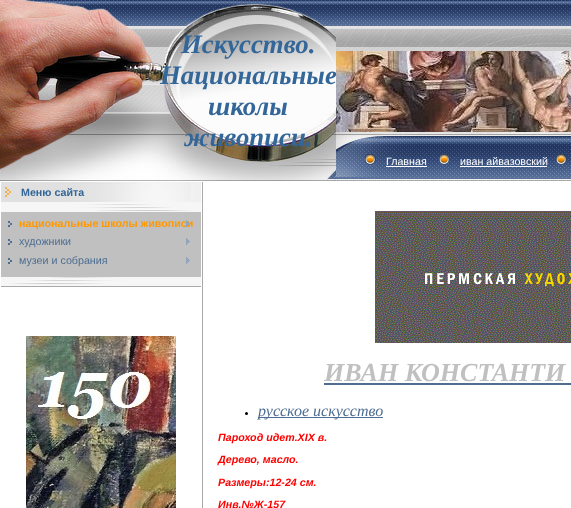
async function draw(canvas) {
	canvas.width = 571;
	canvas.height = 508;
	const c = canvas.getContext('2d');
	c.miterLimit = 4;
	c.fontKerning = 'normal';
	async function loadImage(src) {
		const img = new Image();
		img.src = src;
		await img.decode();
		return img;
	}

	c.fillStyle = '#fff';
	c.fillRect(0, 0, 571, 508);
	c.drawImage(await loadImage('img1.png'), 0, 0, 336, 181);
	c.font = 'italic bold 26.75px Liberation Serif';
	c.fillStyle = '#369';
	for (const [text, x, y] of [
		['Искусство.', 181, 53],
		['Национальные', 160, 84],
		['школы', 208, 115],
		['живописи.', 184, 146],
	]) {
		c.fillText(text, x, y);
	}
	c.drawImage(await loadImage('img2.png'), 336, 0, 235, 181);
	c.drawImage(await loadImage('img3.png'), 336, 51, 235, 81);
	c.drawImage(await loadImage('img4.png'), 365, 154, 11, 11);
	c.font = '10.7px Liberation Sans';
	c.fillStyle = '#fff';
	c.fillText('Главная', 386, 165);
	c.fillRect(386, 166, 41, 1);
	c.drawImage(await loadImage('img5.png'), 439, 154, 11, 11);
	c.fillText('иван айвазовский', 460, 165);
	c.fillRect(460, 166, 87, 1);
	c.drawImage(await loadImage('img6.png'), 556, 154, 11, 11);
	c.drawImage(await loadImage('img7.png'), 1, 182, 200, 20);
	c.font = 'bold 10.7px Liberation Sans';
	c.fillStyle = '#369';
	c.fillText('Меню сайта', 21, 196);
	c.drawImage(await loadImage('img8.png'), 1, 202, 200, 10);
	c.fillStyle = '#c0c0c0';
	c.fillRect(1, 212, 200, 65);
	c.drawImage(await loadImage('img9.png'), 8, 221, 4, 6);
	c.fillStyle = '#ff9800';
	c.fillText('национальные школы живописи', 19, 227);
	c.drawImage(await loadImage('img10.png'), 186, 220, 4, 7);
	c.drawImage(await loadImage('img9.png'), 8, 239, 4, 6);
	c.font = '10.7px Liberation Sans';
	c.fillStyle = '#4d6d91';
	c.fillText('художники', 19, 245);
	c.drawImage(await loadImage('img11.png'), 186, 238, 4, 7);
	c.drawImage(await loadImage('img9.png'), 8, 258, 4, 6);
	c.fillText('музеи и собрания', 19, 264);
	c.drawImage(await loadImage('img11.png'), 186, 257, 4, 7);
	c.drawImage(await loadImage('img12.png'), 1, 277, 200, 10);
	c.drawImage(await loadImage('img13.png'), 26, 336, 150, 172);
	c.fillStyle = '#a9a9a9';
	c.fillRect(202, 182, 1, 326);
	c.drawImage(await loadImage('img14.png'), 375, 211, 196, 132);
	c.font = 'italic bold 26px Liberation Serif';
	c.fillStyle = '#c0c0c0';
	c.fillText('ИВАН КОНСТАНТИ', 324, 381);
	c.fillStyle = '#4d6d91';
	c.fillRect(324, 383, 247, 2);
	c.fillStyle = '#000';
	c.beginPath();
	c.arc(246.5, 413.5, 1.5, 0, 2 * Math.PI);
	c.fill();
	c.fillStyle = '#4d6d91';
	c.fillRect(258, 417, 125, 1);
	c.font = 'italic 16px Liberation Serif';
	c.fillText('русское искусство', 258, 416);
	c.font = 'italic bold 10.7px Liberation Sans';
	c.fillStyle = '#f00';
	for (const [text, x, y] of [
		['Пароход идет.XIX в.', 218, 441],
		['Дерево, масло.', 218, 463],
		['Размеры:12-24 см.', 218, 486],
		['Инв.№Ж-157', 218, 508],
	]) {
		c.fillText(text, x, y);
	}
}

draw(document.querySelector('canvas'));
